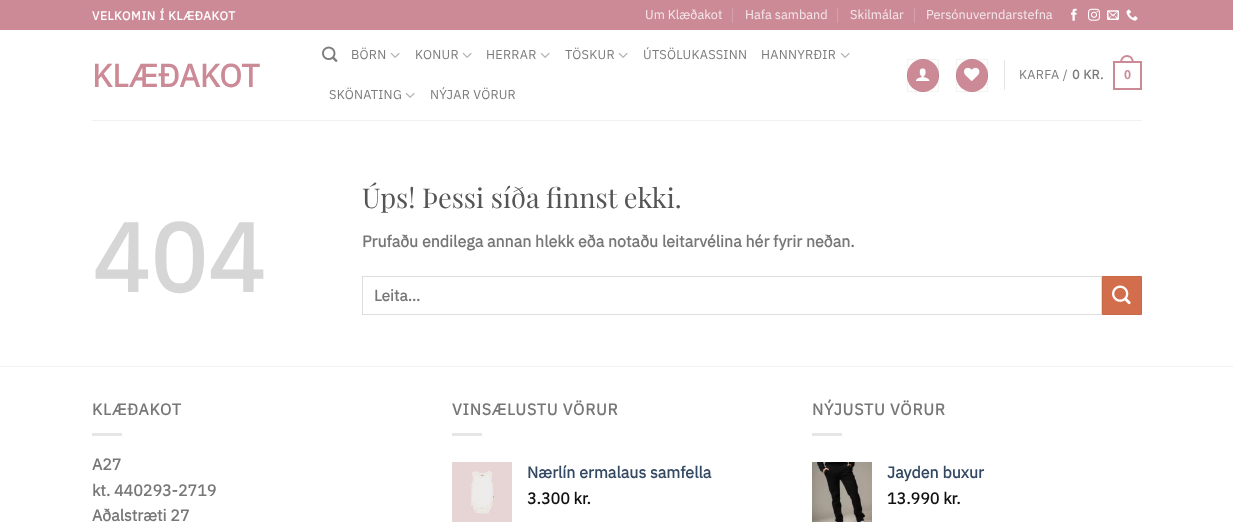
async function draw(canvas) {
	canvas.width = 1233;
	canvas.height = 530;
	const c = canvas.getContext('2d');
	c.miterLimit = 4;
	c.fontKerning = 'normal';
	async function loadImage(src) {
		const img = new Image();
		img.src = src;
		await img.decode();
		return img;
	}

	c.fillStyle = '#fff';
	c.fillRect(0, 0, 1233, 530);
	c.fillStyle = '#cc8a97';
	c.fillRect(0, 0, 1233, 30);
	c.letterSpacing = '0.6px';
	c.font = 'bold 12px IBM Plex Sans';
	c.fillStyle = '#fff';
	c.fillText('VELKOMIN Í KLÆÐAKOT', 92, 20);
	c.letterSpacing = '0px';
	c.font = '12.75px IBM Plex Sans';
	c.fillStyle = '#f5e8ea';
	c.fillText('Um Klæðakot', 645, 19);
	c.fillStyle = '#d6a1ac';
	c.fillRect(732, 8, 1, 15);
	c.fillStyle = '#f5e8ea';
	c.fillText('Hafa samband', 745, 19);
	c.fillStyle = '#d6a1ac';
	c.fillRect(837, 8, 1, 15);
	c.fillStyle = '#f5e8ea';
	c.fillText('Skilmálar', 850, 19);
	c.fillStyle = '#d6a1ac';
	c.fillRect(914, 8, 1, 15);
	c.fillStyle = '#f5e8ea';
	c.fillText('Persónuverndarstefna', 926, 19);
	c.drawImage(await loadImage('img1.png'), 1071, 8, 6, 13);
	c.drawImage(await loadImage('img2.png'), 1088, 8, 12, 13);
	c.drawImage(await loadImage('img3.png'), 1107, 10, 12, 10);
	c.drawImage(await loadImage('img4.png'), 1126, 9, 12, 12);
	c.font = 'bold 32px IBM Plex Sans';
	c.fillStyle = '#cc8a97';
	c.fillText('KLÆÐAKOT', 92, 87);
	c.drawImage(await loadImage('img5.png'), 322, 46, 16, 16);
	c.letterSpacing = '0.25px';
	c.font = '12.75px IBM Plex Sans';
	c.fillStyle = '#7d7d7d';
	c.fillText('BÖRN', 351, 59);
	c.drawImage(await loadImage('img6.png'), 390, 52, 10, 6);
	c.fillText('KONUR', 415, 59);
	c.drawImage(await loadImage('img6.png'), 462, 52, 10, 6);
	c.fillText('HERRAR', 486, 59);
	c.drawImage(await loadImage('img6.png'), 540, 52, 10, 6);
	c.fillText('TÖSKUR', 565, 59);
	c.drawImage(await loadImage('img6.png'), 618, 52, 10, 6);
	c.fillText('ÚTSÖLUKASSINN', 643, 59);
	c.fillText('HANNYRÐIR', 761, 59);
	c.drawImage(await loadImage('img6.png'), 840, 52, 10, 6);
	c.fillText('SKÖNATING', 329, 99);
	c.drawImage(await loadImage('img6.png'), 405, 92, 10, 6);
	c.fillText('NÝJAR VÖRUR', 430, 99);
	c.fillStyle = '#cc8a97';
	c.beginPath();
	c.roundRect(907, 59, 32, 33, 16);
	c.fill();
	c.strokeStyle = '#0000000d';
	c.strokeRect(907.5, 59.5, 31, 32);
	c.drawImage(await loadImage('img7.png'), 916, 68, 14, 13);
	c.beginPath();
	c.roundRect(956, 59, 32, 33, 16);
	c.fill();
	c.strokeRect(956.5, 59.5, 31, 32);
	c.drawImage(await loadImage('img8.png'), 964, 67, 16, 14);
	c.fillStyle = '#e6e6e6';
	c.fillRect(1004, 60, 1, 30);
	c.fillStyle = '#7d7d7d';
	c.fillText('KARFA /', 1019, 79);
	c.font = 'bold 12.75px IBM Plex Sans';
	c.fillText('0 KR.', 1072, 79);
	c.strokeStyle = '#cc8a97';
	c.lineWidth = 2;
	c.strokeRect(1114, 62, 27, 27);
	c.fillStyle = '#cc8a97';
	c.beginPath();
	c.moveTo(1127, 55);
	c.bezierCurveTo(1131.5, 55, 1134, 59, 1134, 63);
	c.lineTo(1120, 63);
	c.bezierCurveTo(1120, 59, 1122.5, 55, 1127, 55);
	c.closePath();
	c.moveTo(1127, 57);
	c.bezierCurveTo(1130.5, 57, 1132, 60, 1132, 63);
	c.lineTo(1122, 63);
	c.bezierCurveTo(1122, 60, 1123.5, 57, 1127, 57);
	c.closePath();
	c.fill('evenodd');
	c.font = 'bold 12.75px Liberation Sans';
	c.fillText('0', 1124, 79);
	c.fillStyle = '#f1f1f1';
	c.fillRect(92, 120, 1050, 1);
	c.letterSpacing = '0px';
	c.font = 'bold 96px IBM Plex Sans';
	c.fillStyle = '#d6d6d6';
	c.fillText('404', 92, 292);
	c.font = '27.25px Playfair Display';
	c.fillStyle = '#555';
	c.fillText('Úps! Þessi síða finnst ekki.', 362, 208);
	c.font = 'bold 16px IBM Plex Sans';
	c.fillStyle = '#777';
	c.fillText('Prufaðu endilega annan hlekk eða notaðu leitarvélina hér fyrir neðan.', 362, 247);
	c.strokeStyle = '#ddd';
	c.lineWidth = 1;
	c.strokeRect(362.5, 276.5, 739, 38);
	c.font = 'bold 15.5px IBM Plex Sans';
	c.fillText('Leita…', 374, 301);
	c.fillStyle = '#d26e4b';
	c.beginPath();
	c.rect(1102.5, 276.5, 39, 38);
	c.fill();
	c.strokeStyle = '#c86947';
	c.stroke();
	c.drawImage(await loadImage('img9.png'), 1112, 285, 19, 20);
	c.fillStyle = '#f2f2f2';
	c.fillRect(0, 366, 1233, 1);
	c.letterSpacing = '0.75px';
	c.font = 'bold 16px IBM Plex Sans';
	c.fillStyle = '#777';
	c.fillText('KLÆÐAKOT', 92, 415);
	c.fillStyle = '#e6e6e6';
	c.fillRect(92, 433, 30, 3);
	c.letterSpacing = '0px';
	c.fillStyle = '#777';
	for (const [text, x, y] of [
		['A27', 92, 470],
		['kt. 440293-2719', 92, 496],
		['Aðalstræti 27', 92, 521],
	]) {
		c.fillText(text, x, y);
	}
	c.letterSpacing = '0.75px';
	c.fillText('VINSÆLUSTU VÖRUR', 452, 415);
	c.fillStyle = '#e6e6e6';
	c.fillRect(452, 433, 30, 3);
	c.drawImage(await loadImage('img10.png'), 452, 462, 60, 60);
	c.letterSpacing = '0px';
	c.fillStyle = '#334862';
	c.fillText('Nærlín ermalaus samfella', 527, 478);
	c.fillStyle = '#111';
	c.fillText('3.300 kr.', 527, 504);
	c.letterSpacing = '0.75px';
	c.fillStyle = '#777';
	c.fillText('NÝJUSTU VÖRUR', 812, 415);
	c.fillStyle = '#e6e6e6';
	c.fillRect(812, 433, 30, 3);
	c.drawImage(await loadImage('img11.png'), 812, 462, 60, 60);
	c.letterSpacing = '0px';
	c.fillStyle = '#334862';
	c.fillText('Jayden buxur', 887, 478);
	c.fillStyle = '#111';
	c.fillText('13.990 kr.', 887, 504);
}

draw(document.querySelector('canvas'));
